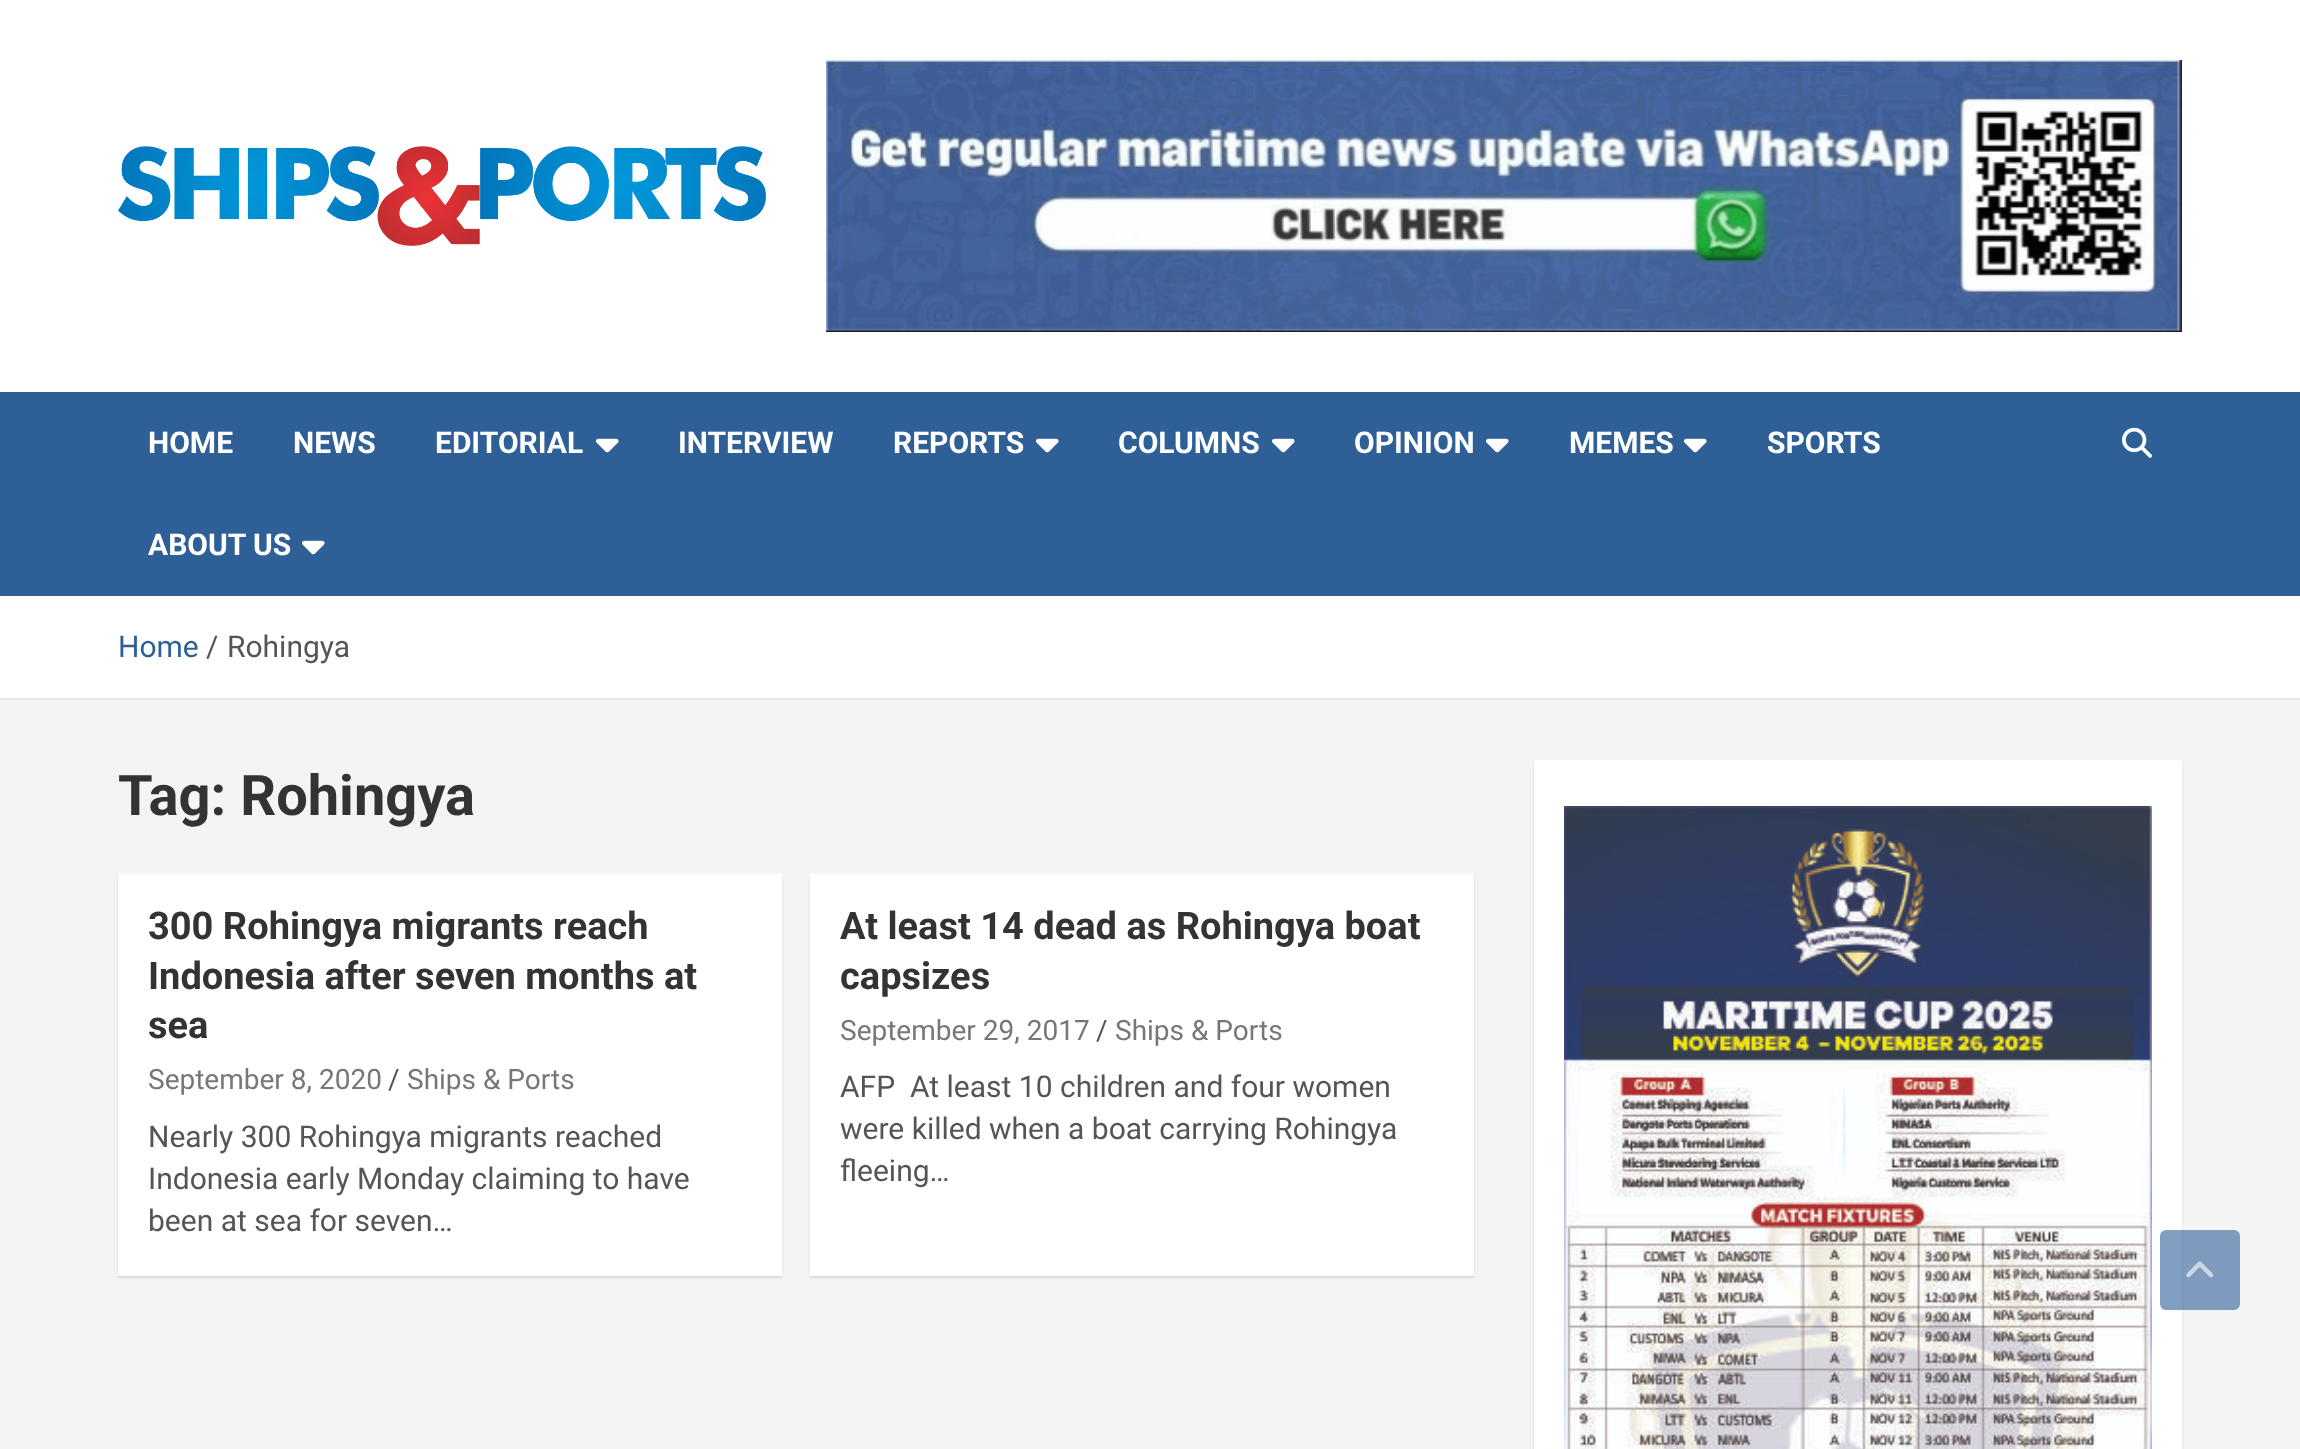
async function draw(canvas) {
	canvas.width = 2300;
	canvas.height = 1449;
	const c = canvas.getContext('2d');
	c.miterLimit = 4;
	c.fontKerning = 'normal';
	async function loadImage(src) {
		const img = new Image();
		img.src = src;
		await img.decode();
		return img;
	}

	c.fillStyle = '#f4f4f4';
	c.fillRect(0, 0, 2300, 1449);
	c.fillStyle = '#fff';
	c.fillRect(0, 0, 2300, 392);
	c.drawImage(await loadImage('img1.png'), 118, 146, 648, 100);
	c.drawImage(await loadImage('img2.png'), 826, 60, 1356, 272);
	c.fillStyle = '#2e5f97';
	c.fillRect(0, 392, 2300, 204);
	c.font = 'bold 30px Roboto';
	c.fillStyle = '#fff';
	for (const [text, x, y] of [
		['HOME', 148, 453],
		['NEWS', 293, 453],
		['EDITORIAL', 435, 453],
	]) {
		c.fillText(text, x, y);
	}
	c.drawImage(await loadImage('img3.png'), 596, 438, 23, 15);
	c.fillText('INTERVIEW', 678, 453);
	c.fillText('REPORTS', 893, 453);
	c.drawImage(await loadImage('img3.png'), 1036, 438, 23, 15);
	c.fillText('COLUMNS', 1118, 453);
	c.drawImage(await loadImage('img3.png'), 1272, 438, 23, 15);
	c.fillText('OPINION', 1354, 453);
	c.drawImage(await loadImage('img3.png'), 1486, 438, 23, 15);
	c.fillText('MEMES', 1569, 453);
	c.drawImage(await loadImage('img3.png'), 1684, 438, 23, 15);
	c.fillText('SPORTS', 1767, 453);
	c.fillText('ABOUT US', 148, 555);
	c.drawImage(await loadImage('img3.png'), 302, 540, 23, 15);
	c.drawImage(await loadImage('img4.png'), 2122, 427, 30, 31);
	c.fillRect(0, 596, 2300, 102);
	c.fillStyle = '#e6e6e6';
	c.fillRect(0, 698, 2300, 2);
	c.font = '30px Roboto';
	c.fillStyle = '#2e5f97';
	c.fillText('Home', 118, 657);
	c.fillStyle = '#555';
	c.fillText('/', 206, 657);
	c.fillText('Rohingya', 227, 657);
	c.font = 'bold 56px Roboto';
	c.fillStyle = '#333';
	c.fillText('Tag: Rohingya', 118, 815);
	c.fillStyle = '#0000001a';
	c.filter = 'blur(1px)';
	c.beginPath();
	c.rect(118, 876, 664, 402);
	c.fill();
	c.filter = 'none';
	c.fillStyle = '#fff';
	c.fillRect(118, 874, 664, 402);
	c.font = 'bold 38px Roboto';
	c.fillStyle = '#333';
	for (const [text, x, y] of [
		['300 Rohingya migrants reach', 148, 939],
		['Indonesia after seven months at', 148, 989],
		['sea', 148, 1038],
	]) {
		c.fillText(text, x, y);
	}
	c.font = '28px Roboto';
	c.fillStyle = '#777';
	c.fillText('September 8, 2020', 148, 1089);
	c.fillStyle = '#555';
	c.fillText('/', 388, 1089);
	c.fillStyle = '#777';
	c.fillText('Ships & Ports', 407, 1089);
	c.font = '30px Roboto';
	c.fillStyle = '#555';
	for (const [text, x, y] of [
		['Nearly 300 Rohingya migrants reached', 148, 1147],
		['Indonesia early Monday claiming to have', 148, 1189],
		['been at sea for seven…', 148, 1231],
	]) {
		c.fillText(text, x, y);
	}
	c.fillStyle = '#0000001a';
	c.filter = 'blur(1px)';
	c.beginPath();
	c.rect(810, 876, 664, 402);
	c.fill();
	c.filter = 'none';
	c.fillStyle = '#fff';
	c.fillRect(810, 874, 664, 402);
	c.font = 'bold 38px Roboto';
	c.fillStyle = '#333';
	c.fillText('At least 14 dead as Rohingya boat', 840, 939);
	c.fillText('capsizes', 840, 989);
	c.font = '28px Roboto';
	c.fillStyle = '#777';
	c.fillText('September 29, 2017', 840, 1040);
	c.fillStyle = '#555';
	c.fillText('/', 1096, 1040);
	c.fillStyle = '#777';
	c.fillText('Ships & Ports', 1115, 1040);
	c.font = '30px Roboto';
	c.fillStyle = '#555';
	for (const [text, x, y] of [
		['AFP  At least 10 children and four women', 840, 1097],
		['were killed when a boat carrying Rohingya', 840, 1139],
		['fleeing…', 840, 1181],
	]) {
		c.fillText(text, x, y);
	}
	c.fillStyle = '#0000001a';
	c.filter = 'blur(1px)';
	c.beginPath();
	c.rect(1534, 762, 648, 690);
	c.fill();
	c.filter = 'none';
	c.fillStyle = '#fff';
	c.fillRect(1534, 760, 648, 689);
	c.drawImage(await loadImage('img5.png'), 1564, 806, 588, 643);
	c.fillStyle = '#2e5f9799';
	c.beginPath();
	c.roundRect(2160, 1230, 80, 80, 6);
	c.fill();
	c.drawImage(await loadImage('img6.png'), 2186, 1261, 28, 17);
}

draw(document.querySelector('canvas'));
